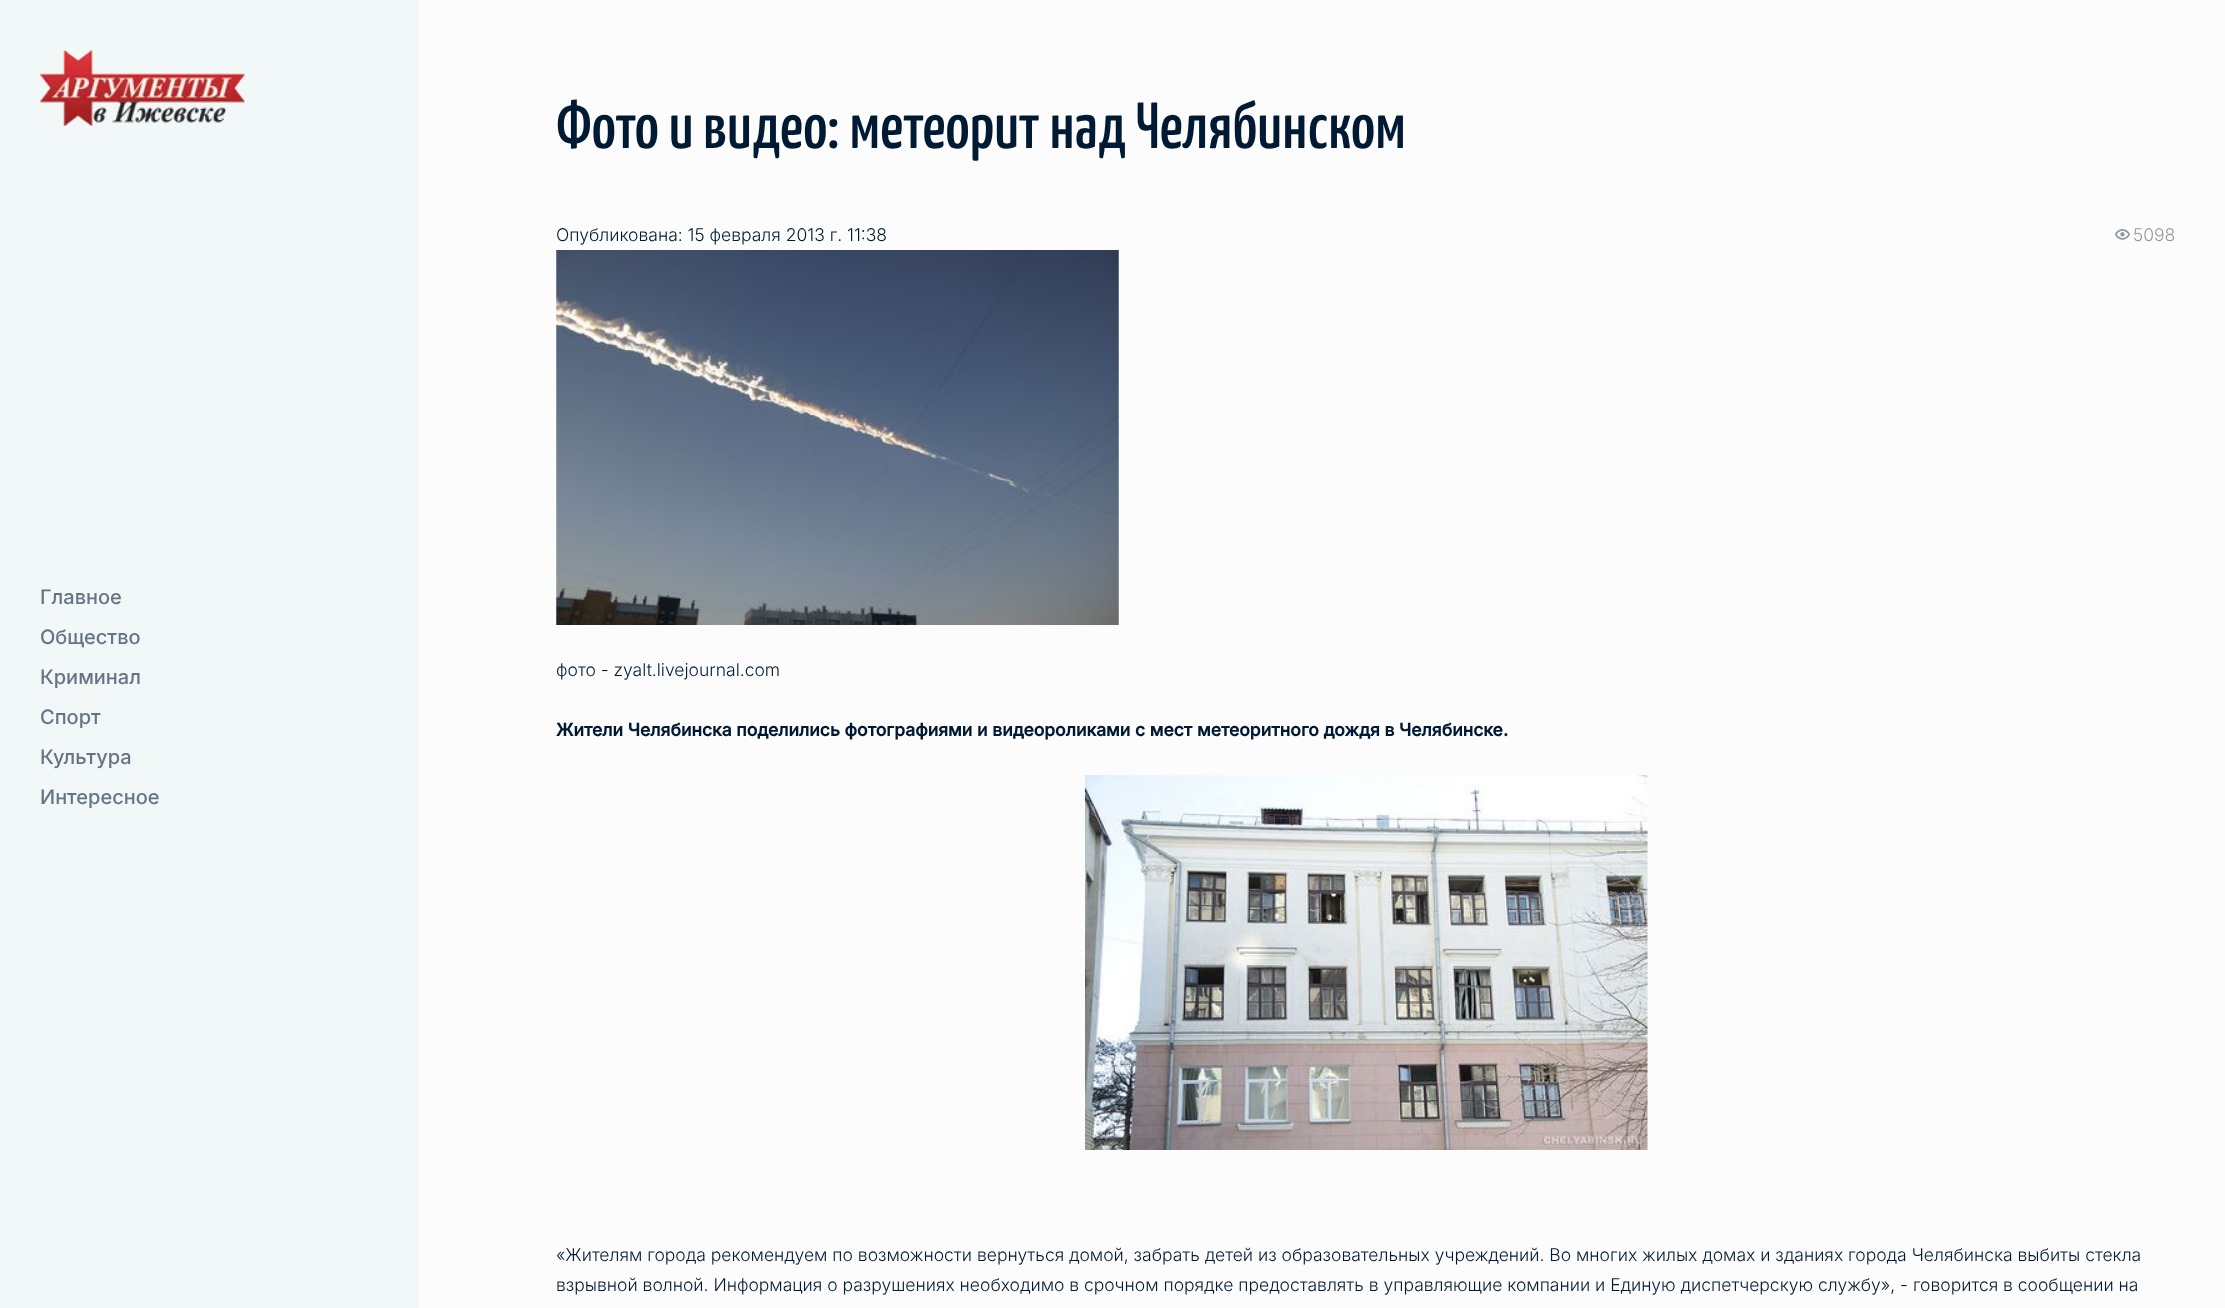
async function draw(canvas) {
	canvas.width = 2225;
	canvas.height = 1308;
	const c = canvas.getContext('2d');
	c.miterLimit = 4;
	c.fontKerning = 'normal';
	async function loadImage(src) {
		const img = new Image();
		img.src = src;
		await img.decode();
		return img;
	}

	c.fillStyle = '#fcfcfc';
	c.fillRect(0, 0, 2225, 1308);
	c.fillStyle = '#f2f7f8';
	c.fillRect(0, 0, 418, 1308);
	c.drawImage(await loadImage('img1.png'), 40, 50, 205, 76);
	c.font = '500 20px Inter';
	c.fillStyle = '#667585';
	for (const [text, x, y] of [
		['Главное', 40, 604],
		['Общество', 40, 644],
		['Криминал', 40, 684],
		['Спорт', 40, 724],
		['Культура', 40, 764],
		['Интересное', 40, 804],
	]) {
		c.fillText(text, x, y);
	}
	c.font = '200 65px Yanone Kaffeesatz';
	c.fillStyle = '#001a33';
	c.fillText('Фото и видео: метеорит над Челябинском', 556, 148);
	c.font = '300 17.5px Inter';
	c.fillText('Опубликована: 15 февраля 2013 г. 11:38', 556, 241);
	c.drawImage(await loadImage('img2.png'), 2115, 229, 15, 11);
	c.fillStyle = '#999';
	c.fillText('5098', 2133, 241);
	c.drawImage(await loadImage('img3.png'), 556, 250, 563, 375);
	c.fillStyle = '#001a33';
	c.fillText('фото - zyalt.livejournal.com', 556, 676);
	c.font = 'bold 17.5px Inter';
	c.fillText('Жители Челябинска поделились фотографиями и видеороликами с мест метеоритного дождя в Челябинске.', 556, 736);
	c.drawImage(await loadImage('img4.png'), 1085, 775, 563, 375);
	c.font = '300 17.5px Inter';
	c.fillText('«Жителям города рекомендуем по возможности вернуться домой, забрать детей из образовательных учреждений. Во многих жилых домах и зданиях города Челябинска выбиты стекла', 556, 1261);
	c.fillText('взрывной волной. Информация о разрушениях необходимо в срочном порядке предоставлять в управляющие компании и Единую диспетчерскую службу», - говорится в сообщении на', 556, 1291);
}

draw(document.querySelector('canvas'));
